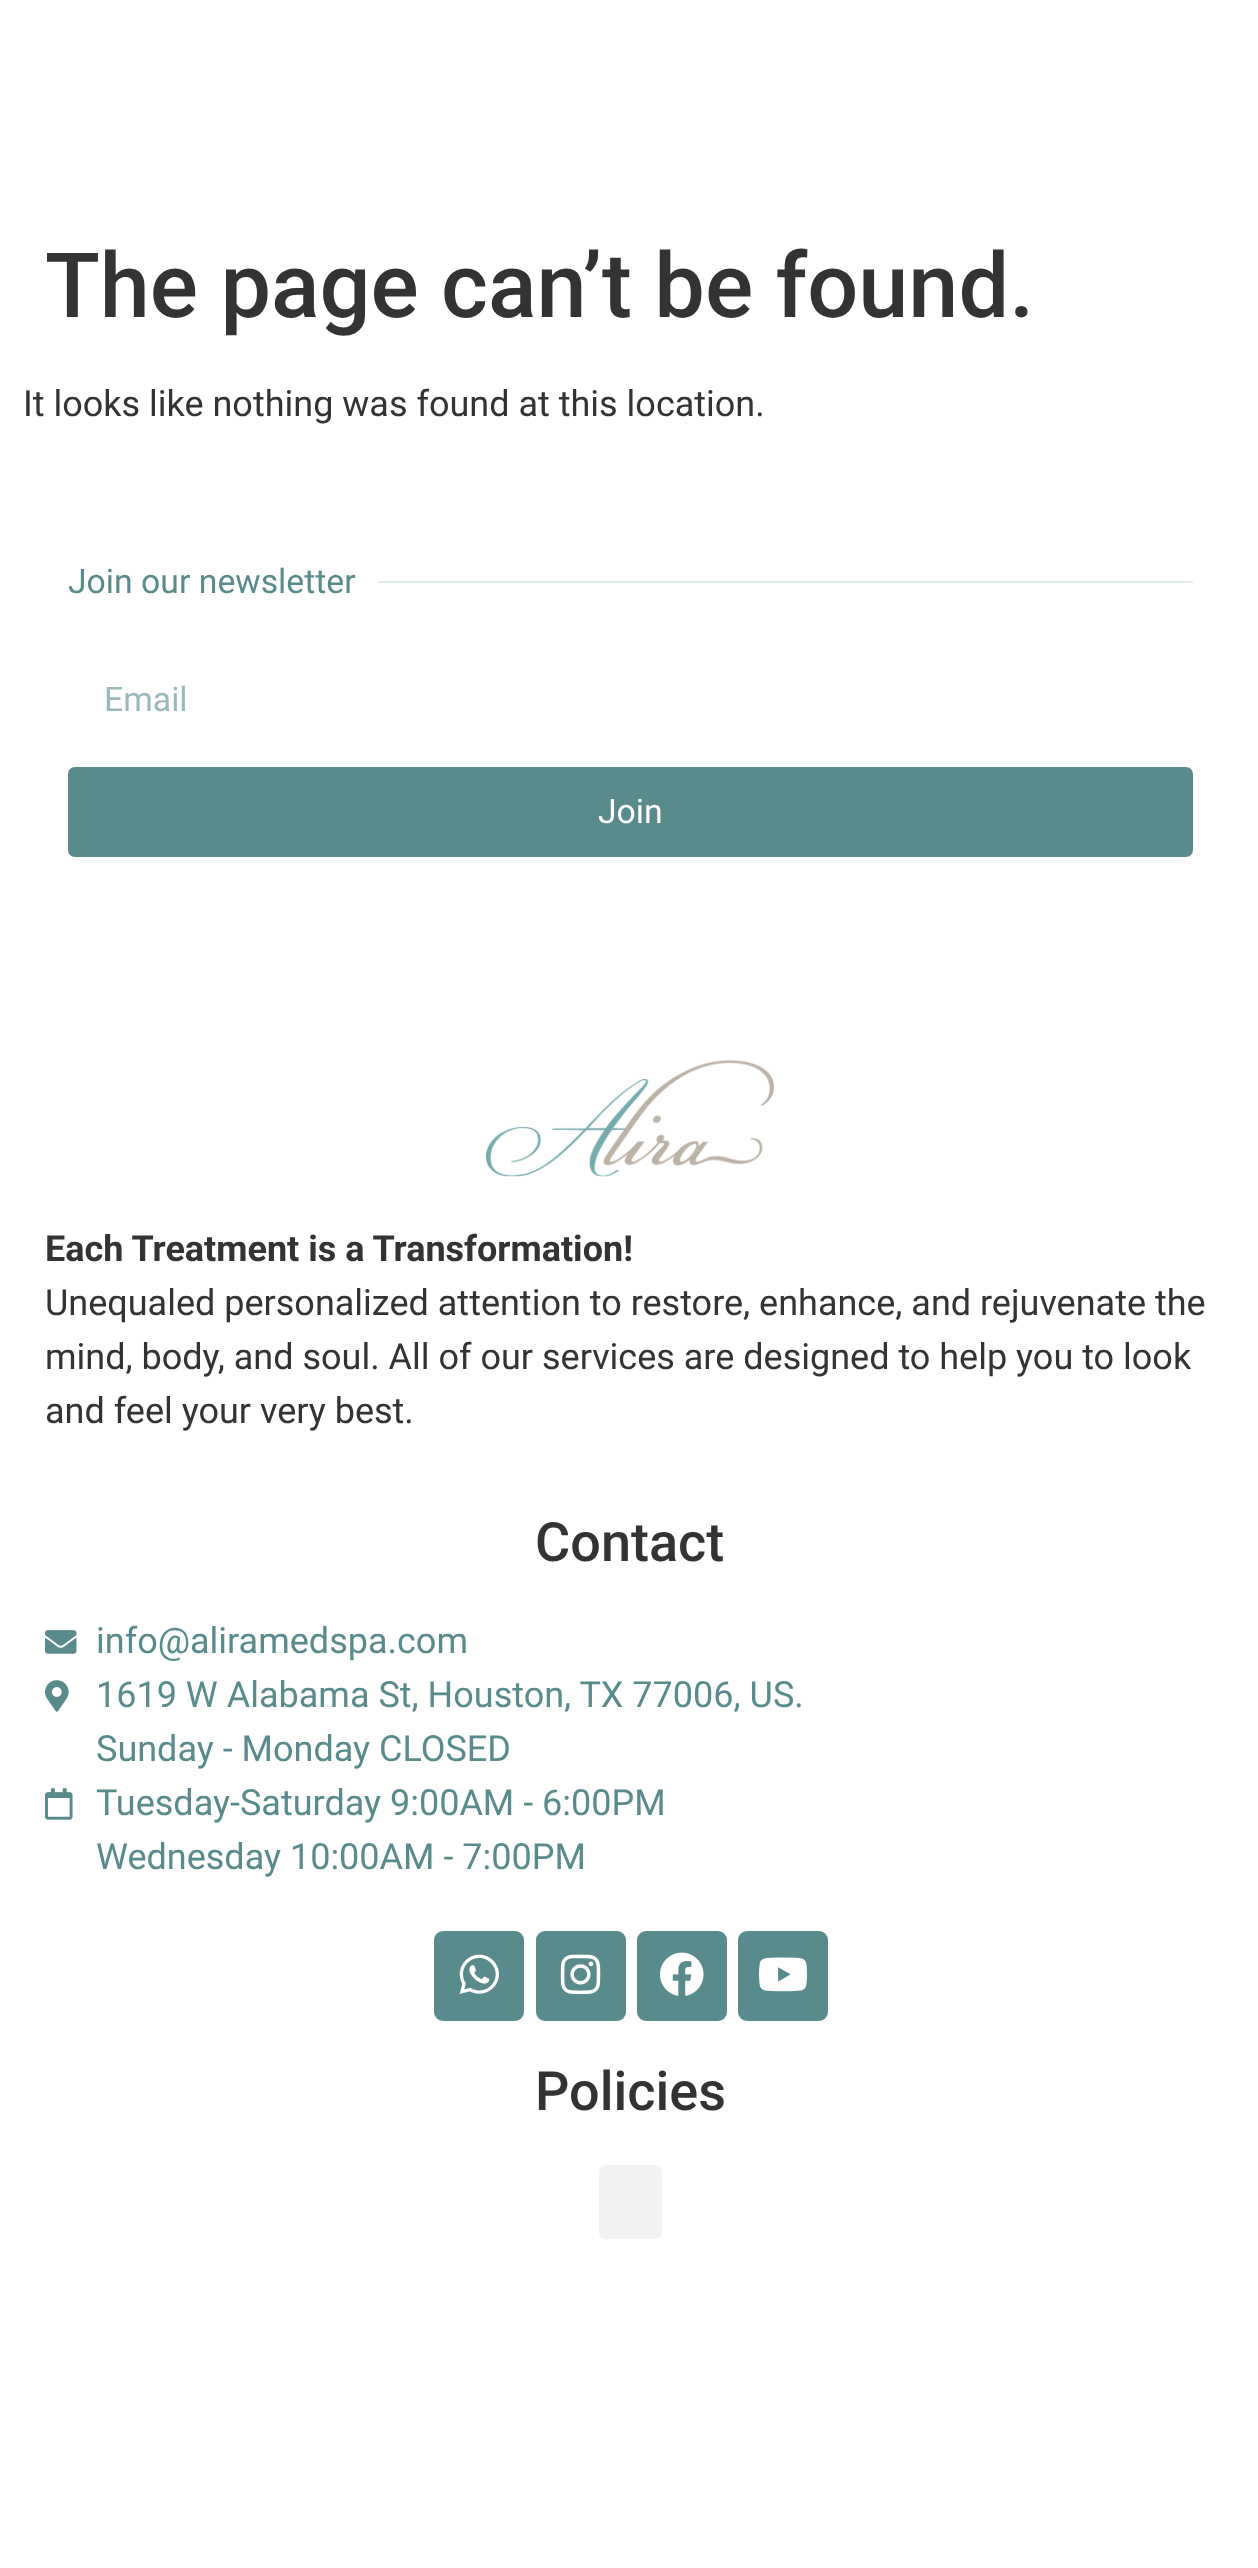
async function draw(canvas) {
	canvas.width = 1258;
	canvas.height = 2568;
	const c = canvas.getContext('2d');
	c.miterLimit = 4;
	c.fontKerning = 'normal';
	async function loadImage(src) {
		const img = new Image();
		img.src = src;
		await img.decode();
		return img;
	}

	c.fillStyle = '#fff';
	c.fillRect(0, 0, 1258, 2568);
	c.font = '500 90px Roboto';
	c.fillStyle = '#333';
	c.fillText('The page can’t be found.', 45, 317);
	c.font = '36px Roboto';
	c.fillText('It looks like nothing was found at this location.', 23, 416);
	c.font = '33.75px Roboto';
	c.fillStyle = '#598b8c';
	c.fillText('Join our newsletter', 68, 593);
	c.fillStyle = '#e1ecec';
	c.fillRect(378, 581, 815, 2);
	c.fillStyle = '#9bb9ba';
	c.fillText('Email', 104, 711);
	c.fillStyle = '#598b8c';
	c.beginPath();
	c.roundRect(68, 767, 1125, 90, 7);
	c.fill();
	c.fillStyle = '#fff';
	c.fillText('Join', 598, 823);
	c.drawImage(await loadImage('img1.png'), 486, 1059, 288, 118);
	c.font = 'bold 36px Roboto';
	c.fillStyle = '#333';
	c.fillText('Each Treatment is a Transformation!', 45, 1261);
	c.font = '36px Roboto';
	for (const [text, x, y] of [
		['Unequaled personalized attention to restore, enhance, and rejuvenate the', 45, 1315],
		['mind, body, and soul. All of our services are designed to help you to look', 45, 1369],
		['and feel your very best.', 45, 1423],
	]) {
		c.fillText(text, x, y);
	}
	c.font = '500 54px Roboto';
	c.fillText('Contact', 535, 1561);
	c.drawImage(await loadImage('img2.png'), 45, 1630, 32, 24);
	c.font = '36px Roboto';
	c.fillStyle = '#598b8c';
	c.fillText('info@aliramedspa.com', 96, 1653);
	c.drawImage(await loadImage('img3.png'), 45, 1680, 24, 32);
	c.fillText('1619 W Alabama St, Houston, TX 77006, US.', 96, 1707);
	c.drawImage(await loadImage('img4.png'), 45, 1788, 28, 32);
	for (const [text, x, y] of [
		['Sunday - Monday CLOSED', 96, 1761],
		['Tuesday-Saturday 9:00AM - 6:00PM', 96, 1815],
		['Wednesday 10:00AM - 7:00PM', 96, 1869],
	]) {
		c.fillText(text, x, y);
	}
	c.beginPath();
	c.roundRect(434, 1931, 90, 90, 9);
	c.fill();
	c.drawImage(await loadImage('img5.png'), 459, 1954, 40, 40);
	c.beginPath();
	c.roundRect(536, 1931, 90, 90, 9);
	c.fill();
	c.drawImage(await loadImage('img6.png'), 560, 1954, 41, 41);
	c.beginPath();
	c.roundRect(637, 1931, 90, 90, 9);
	c.fill();
	c.drawImage(await loadImage('img7.png'), 659, 1952, 45, 44);
	c.beginPath();
	c.roundRect(738, 1931, 90, 90, 9);
	c.fill();
	c.drawImage(await loadImage('img8.png'), 759, 1957, 48, 35);
	c.font = '500 54px Roboto';
	c.fillStyle = '#333';
	c.fillText('Policies', 535, 2110);
	c.fillStyle = '#f2f2f2';
	c.beginPath();
	c.roundRect(599, 2165, 63, 74, 7);
	c.fill();
}

draw(document.querySelector('canvas'));
